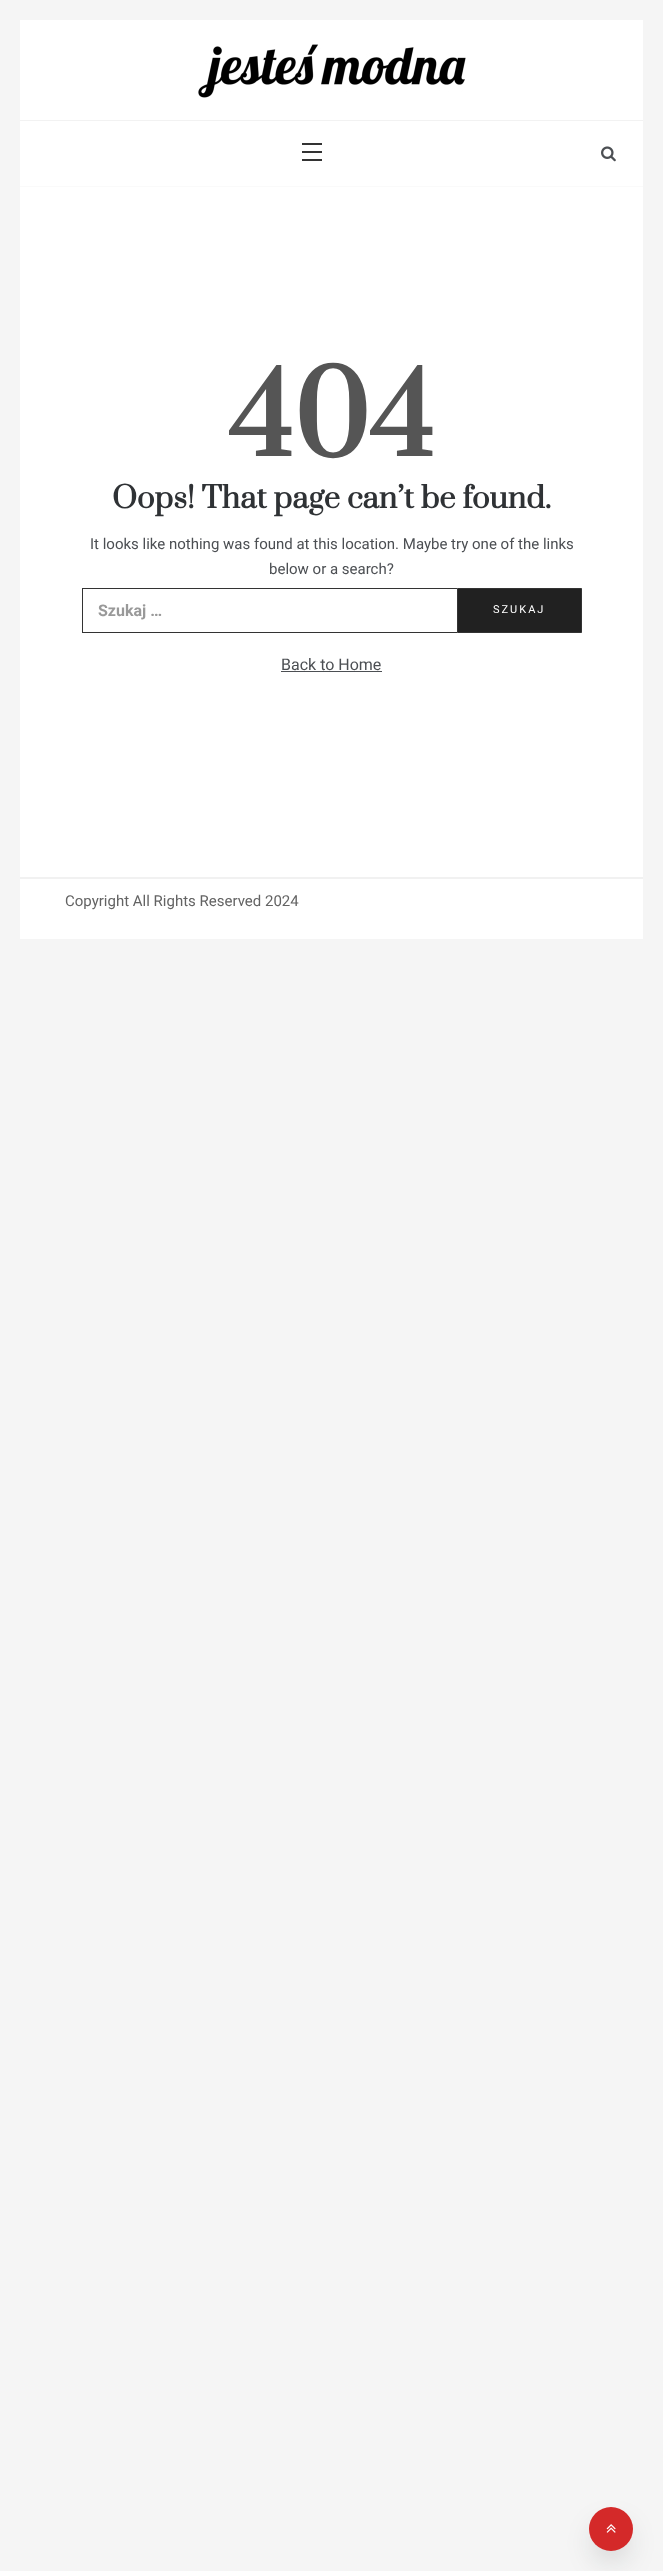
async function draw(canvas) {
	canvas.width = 663;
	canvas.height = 2571;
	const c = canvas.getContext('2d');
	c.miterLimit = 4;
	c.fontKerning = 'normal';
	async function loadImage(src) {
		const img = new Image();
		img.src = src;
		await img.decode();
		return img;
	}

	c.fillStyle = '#f5f5f5';
	c.fillRect(0, 0, 663, 2571);
	for (const [x, y, w, h, color] of [
		[20, 20, 623, 919, '#fff'],
		[20, 186, 623, 1, '#fafafa'],
		[20, 120, 623, 1, '#f2f2f2'],
	]) {
		c.fillStyle = color;
		c.fillRect(x, y, w, h);
	}
	c.drawImage(await loadImage('img1.png'), 198, 44, 268, 54);
	for (const [x, y, w, h, color] of [
		[302, 143, 20, 2, '#333'],
		[302, 151, 20, 2, '#333'],
		[302, 159, 20, 2, '#333'],
	]) {
		c.fillStyle = color;
		c.fillRect(x, y, w, h);
	}
	c.drawImage(await loadImage('img2.png'), 601, 146, 15, 16);
	c.font = 'bold 110px Prata';
	c.fillStyle = '#555';
	c.fillText('404', 229, 456);
	c.font = 'bold 29px Prata';
	c.fillStyle = '#2f3235';
	c.fillText('Oops! That page can’t be found.', 112, 508);
	c.font = '15px Roboto';
	c.fillStyle = '#4c4f53';
	c.fillText('It looks like nothing was found at this location. Maybe try one of the links', 90, 549);
	c.fillText('below or a search?', 269, 574);
	for (const [x, y, w, h, color] of [
		[82, 588, 375, 1, '#333'],
		[82, 632, 375, 1, '#333'],
		[82, 588, 1, 45, '#333'],
	]) {
		c.fillStyle = color;
		c.fillRect(x, y, w, h);
	}
	c.font = 'bold 16px Roboto';
	c.fillStyle = '#999';
	c.fillText('Szukaj …', 98, 616);
	c.fillStyle = '#212121';
	c.beginPath();
	c.rect(457.5, 588.5, 124, 44);
	c.fill();
	c.strokeStyle = '#333';
	c.stroke();
	c.letterSpacing = '2px';
	c.font = '11px Roboto';
	c.fillStyle = '#fff';
	c.fillText('SZUKAJ', 493, 613);
	c.letterSpacing = '0px';
	c.font = '16px Roboto';
	c.fillStyle = '#4c4f53';
	c.fillText('Back to Home', 281, 670);
	c.fillRect(281, 671, 101, 1);
	c.fillStyle = '#f1f1f1';
	c.fillRect(20, 877, 623, 2);
	c.font = '15px Roboto';
	c.fillStyle = '#636363';
	c.fillText('Copyright All Rights Reserved 2024', 65, 906);
	c.fillStyle = '#0e111426';
	c.filter = 'blur(14px)';
	c.beginPath();
	c.roundRect(593, 2525, 36, 36, 18);
	c.fill();
	c.filter = 'none';
	c.fillStyle = '#d42929';
	c.beginPath();
	c.arc(611, 2529, 22, 0, 2 * Math.PI);
	c.fill();
	c.drawImage(await loadImage('img3.png'), 606, 2524, 10, 9);
}

draw(document.querySelector('canvas'));
